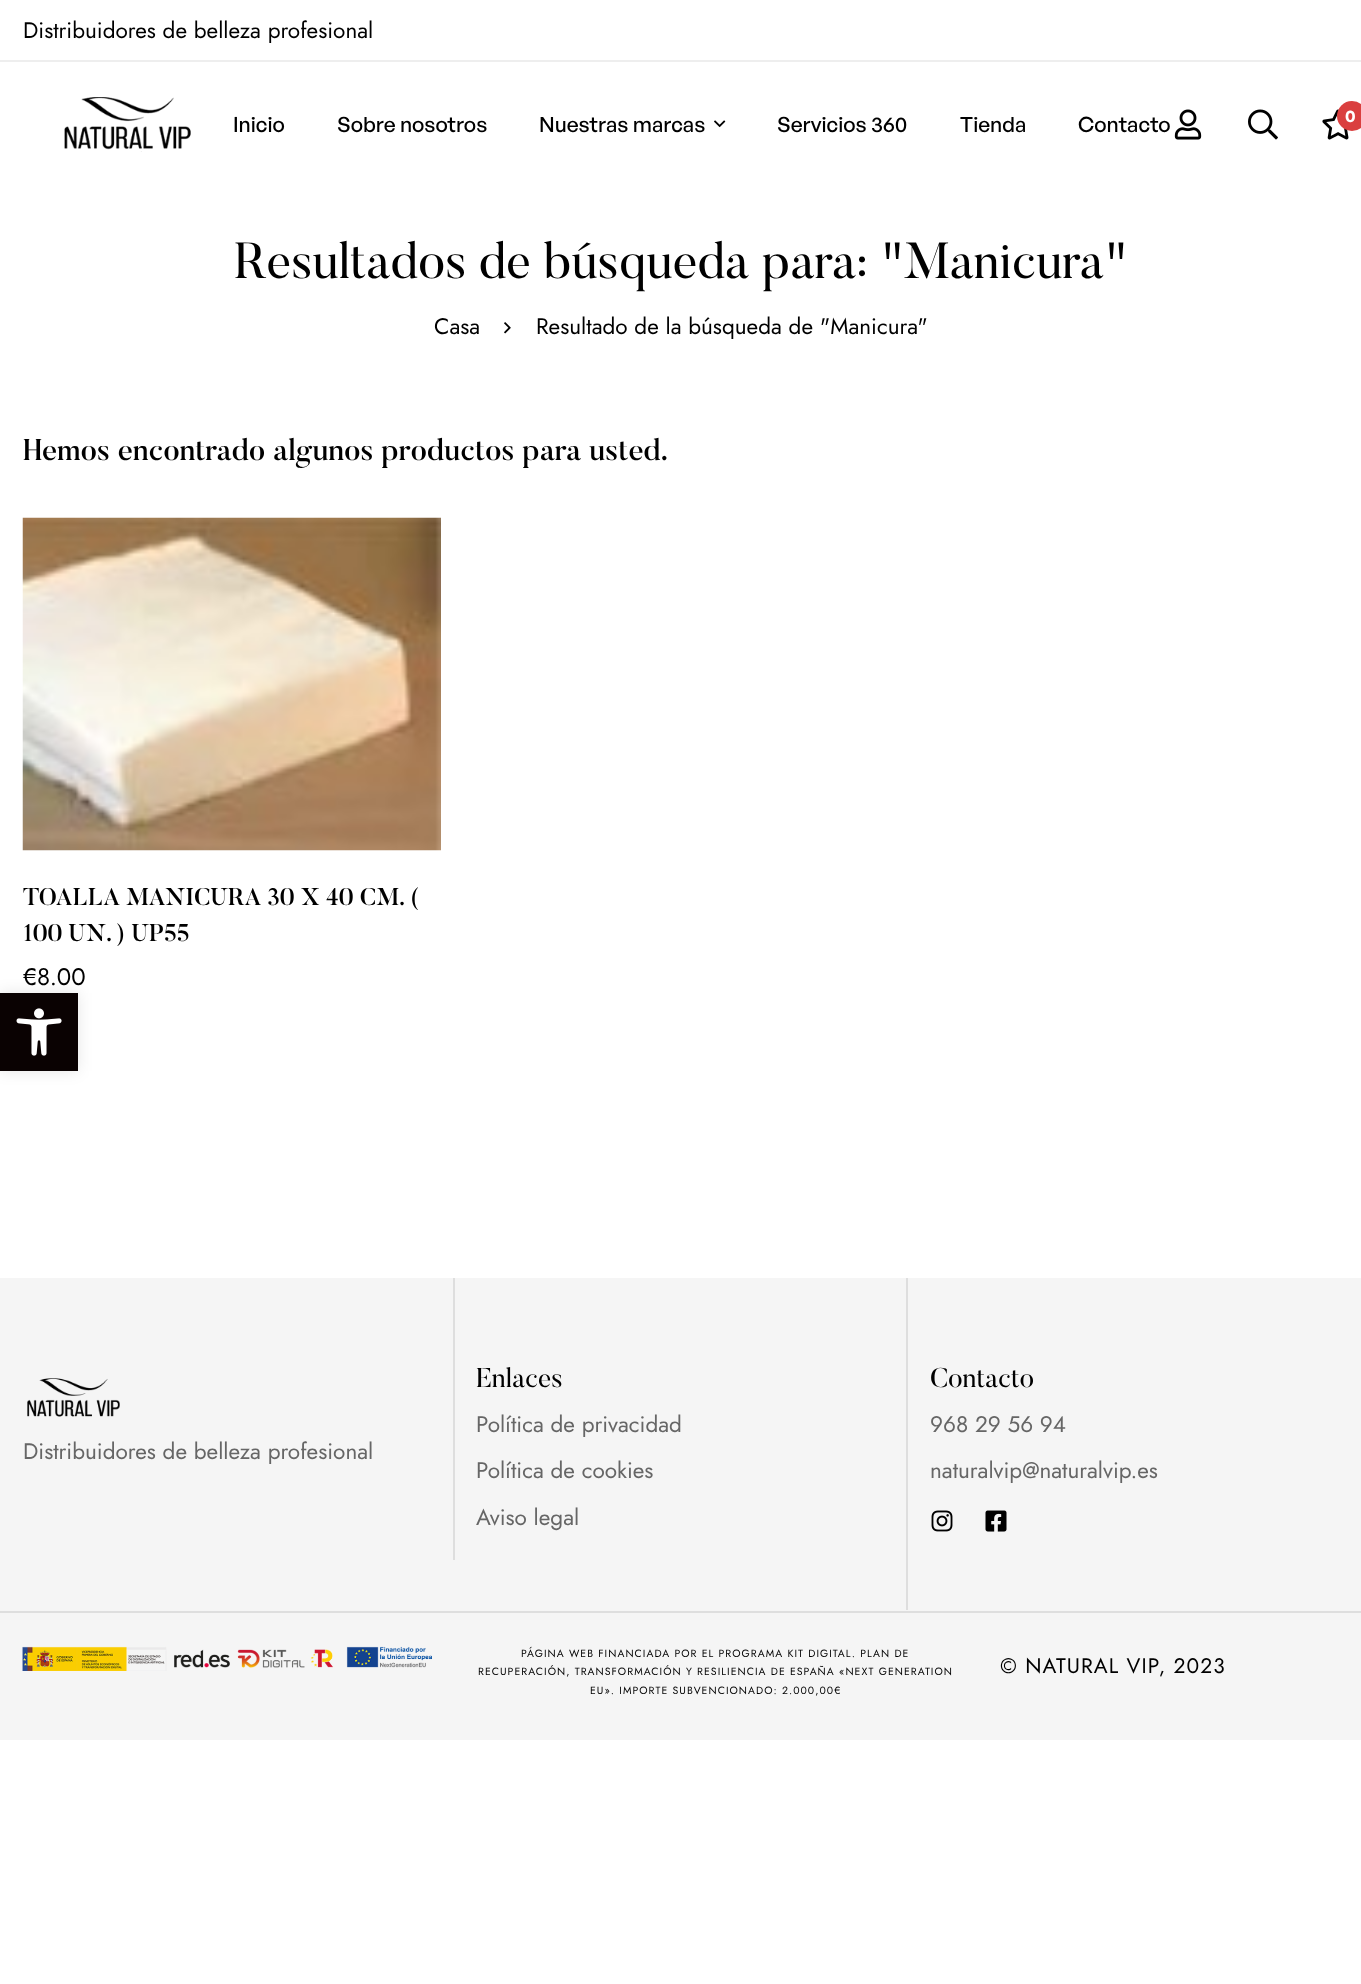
async function draw(canvas) {
	canvas.width = 1361;
	canvas.height = 1984;
	const c = canvas.getContext('2d');
	c.miterLimit = 4;
	c.fontKerning = 'normal';
	async function loadImage(src) {
		const img = new Image();
		img.src = src;
		await img.decode();
		return img;
	}

	c.fillStyle = '#fff';
	c.fillRect(0, 0, 1361, 1984);
	c.fillStyle = '#eee';
	c.fillRect(0, 60, 1361, 2);
	c.font = '22.5px Jost';
	c.fillStyle = '#000';
	c.fillText('Distribuidores de belleza profesional', 23, 38);
	c.drawImage(await loadImage('img1.png'), 64, 97, 127, 55);
	c.font = '500 21px General Sans';
	for (const [text, x, y] of [
		['Inicio', 233, 132],
		['Sobre nosotros', 337, 132],
		['Nuestras marcas', 539, 132],
	]) {
		c.fillText(text, x, y);
	}
	c.drawImage(await loadImage('img2.png'), 714, 120, 12, 8);
	for (const [text, x, y] of [
		['Servicios 360', 777, 132],
		['Tienda', 960, 132],
		['Contacto', 1078, 132],
	]) {
		c.fillText(text, x, y);
	}
	c.drawImage(await loadImage('img3.png'), 1174, 109, 28, 31);
	c.drawImage(await loadImage('img4.png'), 1248, 109, 30, 31);
	c.drawImage(await loadImage('img5.png'), 1322, 109, 27, 31);
	c.fillStyle = '#da3f3f';
	c.beginPath();
	c.arc(1352, 116, 15, 0, 2 * Math.PI);
	c.fill();
	c.font = 'bold 16px Jost';
	c.fillStyle = '#fff';
	c.fillText('0', 1345, 122);
	c.font = '50.4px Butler';
	c.fillStyle = '#000';
	c.fillText('Resultados de búsqueda para: "Manicura"', 234, 278);
	c.font = '22.5px Jost';
	c.fillText('Casa', 434, 334);
	c.drawImage(await loadImage('img6.png'), 504, 322, 7, 12);
	c.fillText('Resultado de la búsqueda de "Manicura"', 536, 334);
	c.font = '500 30px Butler';
	c.fillText('Hemos encontrado algunos productos para usted.', 23, 460);
	c.drawImage(await loadImage('img7.png'), 22, 517, 419, 334);
	c.font = '500 24px Butler';
	c.fillText('TOALLA MANICURA 30 X 40 CM. (', 23, 905);
	c.fillText('100 UN. ) UP55', 23, 941);
	c.font = '24px Jost';
	c.fillText('€8.00', 23, 985);
	c.fillStyle = '#f5f5f5';
	c.fillRect(0, 1278, 1361, 333);
	c.fillStyle = '#dedede';
	c.fillRect(453, 1278, 2, 282);
	c.drawImage(await loadImage('img8.png'), 27, 1378, 93, 41);
	c.font = '22.5px Jost';
	c.fillStyle = '#666';
	c.fillText('Distribuidores de belleza profesional', 23, 1459);
	c.fillStyle = '#dedede';
	c.fillRect(906, 1278, 2, 332);
	c.font = '27px Butler';
	c.fillStyle = '#000';
	c.fillText('Enlaces', 476, 1387);
	c.font = '22.5px Jost';
	c.fillStyle = '#666';
	for (const [text, x, y] of [
		['Política de privacidad', 476, 1432],
		['Política de cookies', 476, 1478],
		['Aviso legal', 476, 1525],
	]) {
		c.fillText(text, x, y);
	}
	c.font = '27px Butler';
	c.fillStyle = '#000';
	c.fillText('Contacto', 930, 1387);
	c.font = '22.5px Jost';
	c.fillStyle = '#666';
	c.fillText('968 29 56 94', 930, 1432);
	c.fillText('naturalvip@naturalvip.es', 930, 1478);
	c.drawImage(await loadImage('img9.png'), 931, 1510, 22, 22);
	c.drawImage(await loadImage('img10.png'), 985, 1510, 22, 22);
	c.fillStyle = '#f5f5f5';
	c.fillRect(0, 1613, 1361, 127);
	c.fillStyle = '#dedede';
	c.fillRect(0, 1611, 1361, 2);
	c.drawImage(await loadImage('img11.png'), 22, 1646, 410, 25);
	c.letterSpacing = '1.05px';
	c.font = '10.5px Jost';
	c.fillStyle = '#000';
	for (const [text, x, y] of [
		['PÁGINA WEB FINANCIADA POR EL PROGRAMA KIT DIGITAL. PLAN DE', 521, 1657],
		['RECUPERACIÓN, TRANSFORMACIÓN Y RESILIENCIA DE ESPAÑA «NEXT GENERATION', 478, 1675],
		['EU». IMPORTE SUBVENCIONADO: 2.000,00€', 590, 1694],
	]) {
		c.fillText(text, x, y);
	}
	c.font = '21px Jost';
	c.fillText('© NATURAL VIP, 2023', 1000, 1673);
	c.fillStyle = '#0000001a';
	c.filter = 'blur(7.5px)';
	c.beginPath();
	c.rect(0, 993, 78, 78);
	c.fill();
	c.filter = 'none';
	c.fillStyle = '#0a0202';
	c.fillRect(0, 993, 78, 78);
	c.drawImage(await loadImage('img12.png'), 16, 1008, 46, 48);
}

draw(document.querySelector('canvas'));
